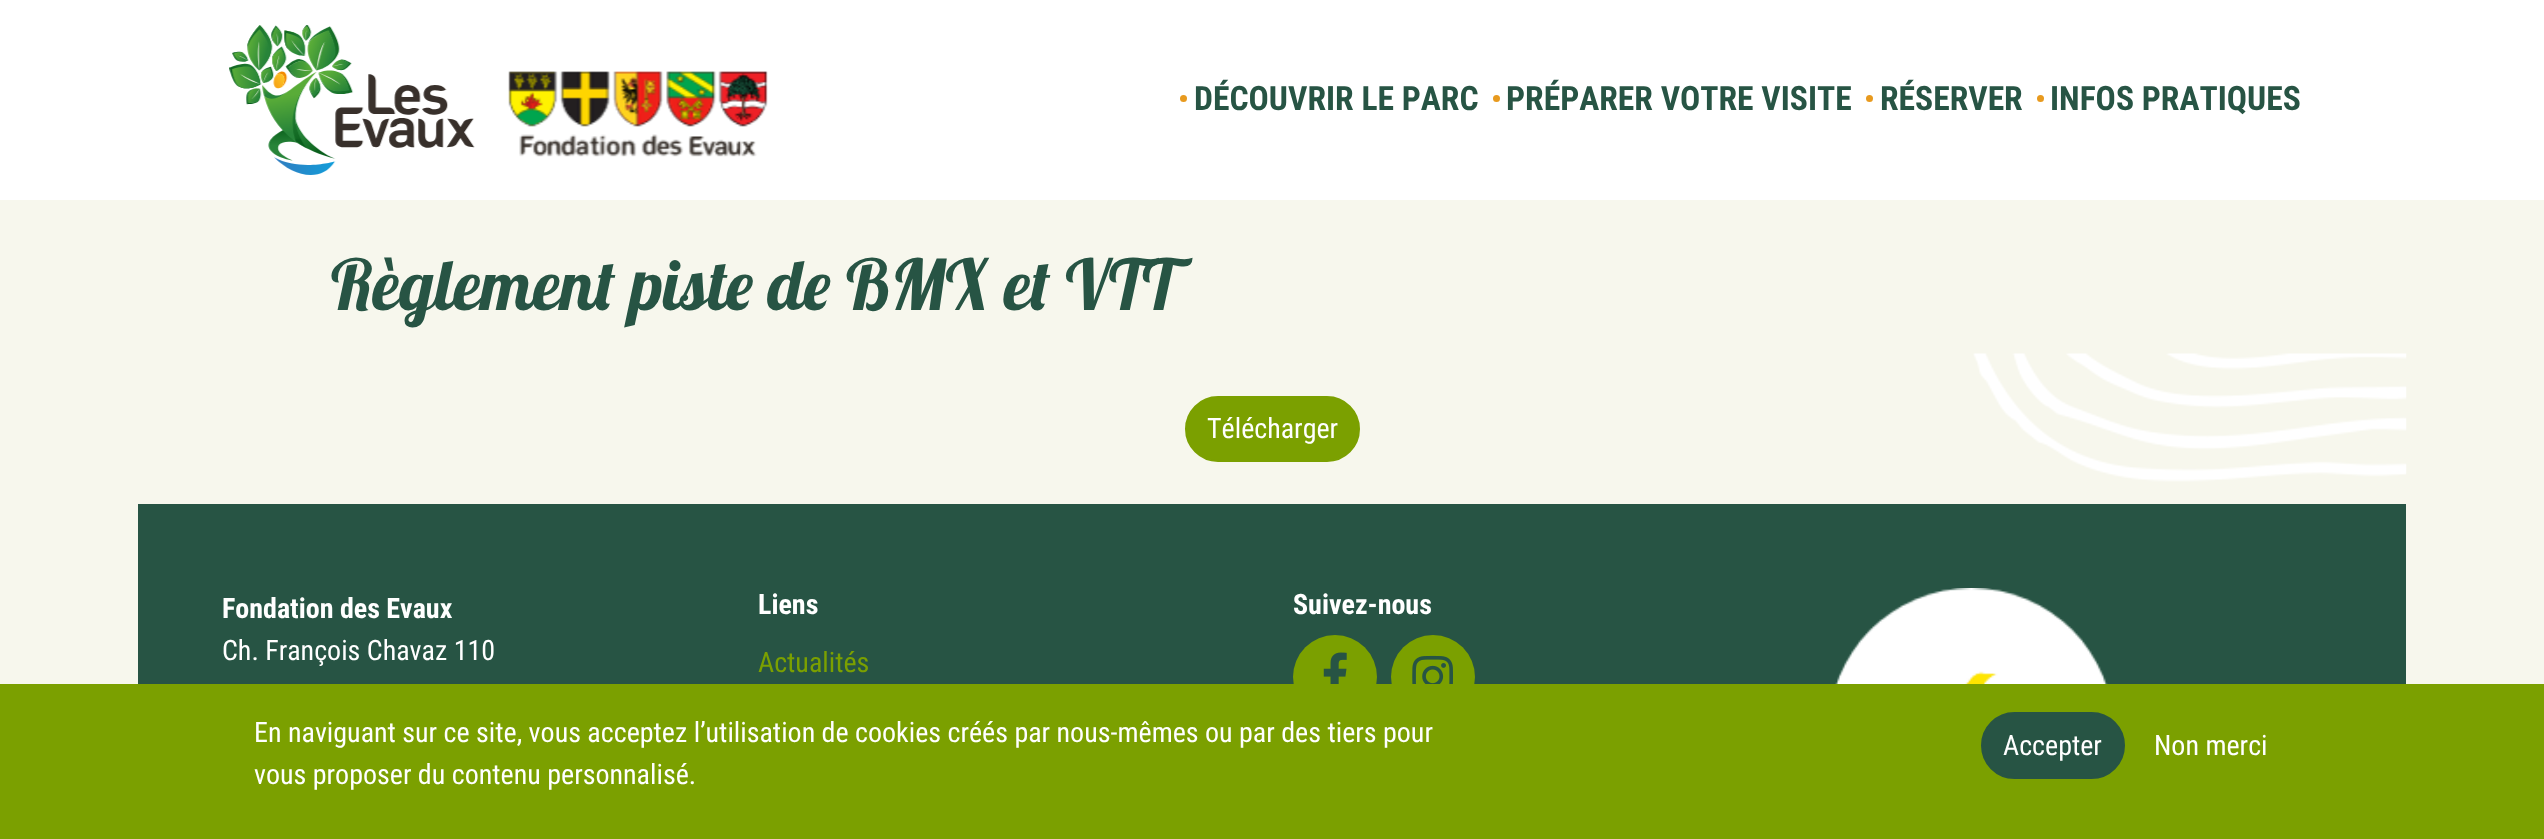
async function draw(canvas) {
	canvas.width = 2544;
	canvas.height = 839;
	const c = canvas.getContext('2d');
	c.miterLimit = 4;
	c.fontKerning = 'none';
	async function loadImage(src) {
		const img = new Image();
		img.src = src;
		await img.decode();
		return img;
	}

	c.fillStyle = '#f7f7ed';
	c.fillRect(0, 0, 2544, 839);
	c.fillStyle = '#fff';
	c.fillRect(0, 0, 2544, 200);
	c.drawImage(await loadImage('img1.png'), 229, 25, 246, 150);
	c.drawImage(await loadImage('img2.png'), 508, 71, 260, 86);
	c.fillStyle = '#e89a1e';
	c.beginPath();
	c.arc(1183.5, 98.5, 3.5, 0, 2 * Math.PI);
	c.fill();
	c.font = 'bold 33.6px Roboto Condensed';
	c.fillStyle = '#275444';
	c.fillText('DÉCOUVRIR LE PARC', 1194, 110);
	c.fillStyle = '#e89a1e';
	c.beginPath();
	c.arc(1496.5, 98.5, 3.5, 0, 2 * Math.PI);
	c.fill();
	c.fillStyle = '#275444';
	c.fillText('PRÉPARER VOTRE VISITE', 1506, 110);
	c.fillStyle = '#e89a1e';
	c.beginPath();
	c.arc(1869.5, 98.5, 3.5, 0, 2 * Math.PI);
	c.fill();
	c.fillStyle = '#275444';
	c.fillText('RÉSERVER', 1880, 110);
	c.fillStyle = '#e89a1e';
	c.beginPath();
	c.arc(2040.5, 98.5, 3.5, 0, 2 * Math.PI);
	c.fill();
	c.fillStyle = '#275444';
	c.fillText('INFOS PRATIQUES', 2050, 110);
	c.font = '70px Lobster';
	c.fillText('Règlement piste de BMX et VTT', 331, 310);
	c.drawImage(await loadImage('img3.png'), 1973, 353, 434, 129);
	c.fillStyle = '#7ba000';
	c.beginPath();
	c.roundRect(1186, 397, 173, 64, 32);
	c.fill();
	c.strokeStyle = '#7ba000';
	c.lineWidth = 2;
	c.stroke();
	c.font = '28px Roboto Condensed';
	c.fillStyle = '#fff';
	c.fillText('Télécharger', 1207, 438);
	c.fillStyle = '#275444';
	c.fillRect(138, 504, 2268, 180);
	c.font = 'bold 28px Roboto Condensed';
	c.fillStyle = '#fff';
	c.fillText('Fondation des Evaux', 222, 618);
	c.font = '28px Roboto Condensed';
	c.fillText('Ch. François Chavaz 110', 222, 660);
	c.font = 'bold 28px Roboto Condensed';
	c.fillText('Liens', 758, 614);
	c.font = '28px Roboto Condensed';
	c.fillStyle = '#7ba000';
	c.fillText('Actualités', 758, 672);
	c.font = 'bold 28px Roboto Condensed';
	c.fillStyle = '#fff';
	c.fillText('Suivez-nous', 1293, 614);
	c.fillStyle = '#7ba000';
	c.beginPath();
	c.arc(1335, 677, 42, 0, 2 * Math.PI);
	c.fill();
	c.drawImage(await loadImage('img4.png'), 1323, 652, 24, 32);
	c.beginPath();
	c.arc(1433, 677, 42, 0, 2 * Math.PI);
	c.fill();
	c.drawImage(await loadImage('img5.png'), 1412, 655, 41, 29);
	c.drawImage(await loadImage('img6.png'), 1835, 588, 273, 96);
	c.fillRect(0, 684, 2544, 155);
	c.font = '28px Roboto Condensed';
	c.fillStyle = '#fff';
	c.fillText('En naviguant sur ce site, vous acceptez l’utilisation de cookies créés par nous-mêmes ou par des tiers pour', 254, 742);
	c.fillText('vous proposer du contenu personnalisé.', 254, 784);
	c.fillStyle = '#275444';
	c.beginPath();
	c.roundRect(1982, 713, 142, 65, 32.5);
	c.fill();
	c.strokeStyle = '#275444';
	c.stroke();
	c.fillStyle = '#fff';
	c.fillText('Accepter', 2003, 755);
	c.fillText('Non merci', 2154, 755);
}

draw(document.querySelector('canvas'));
